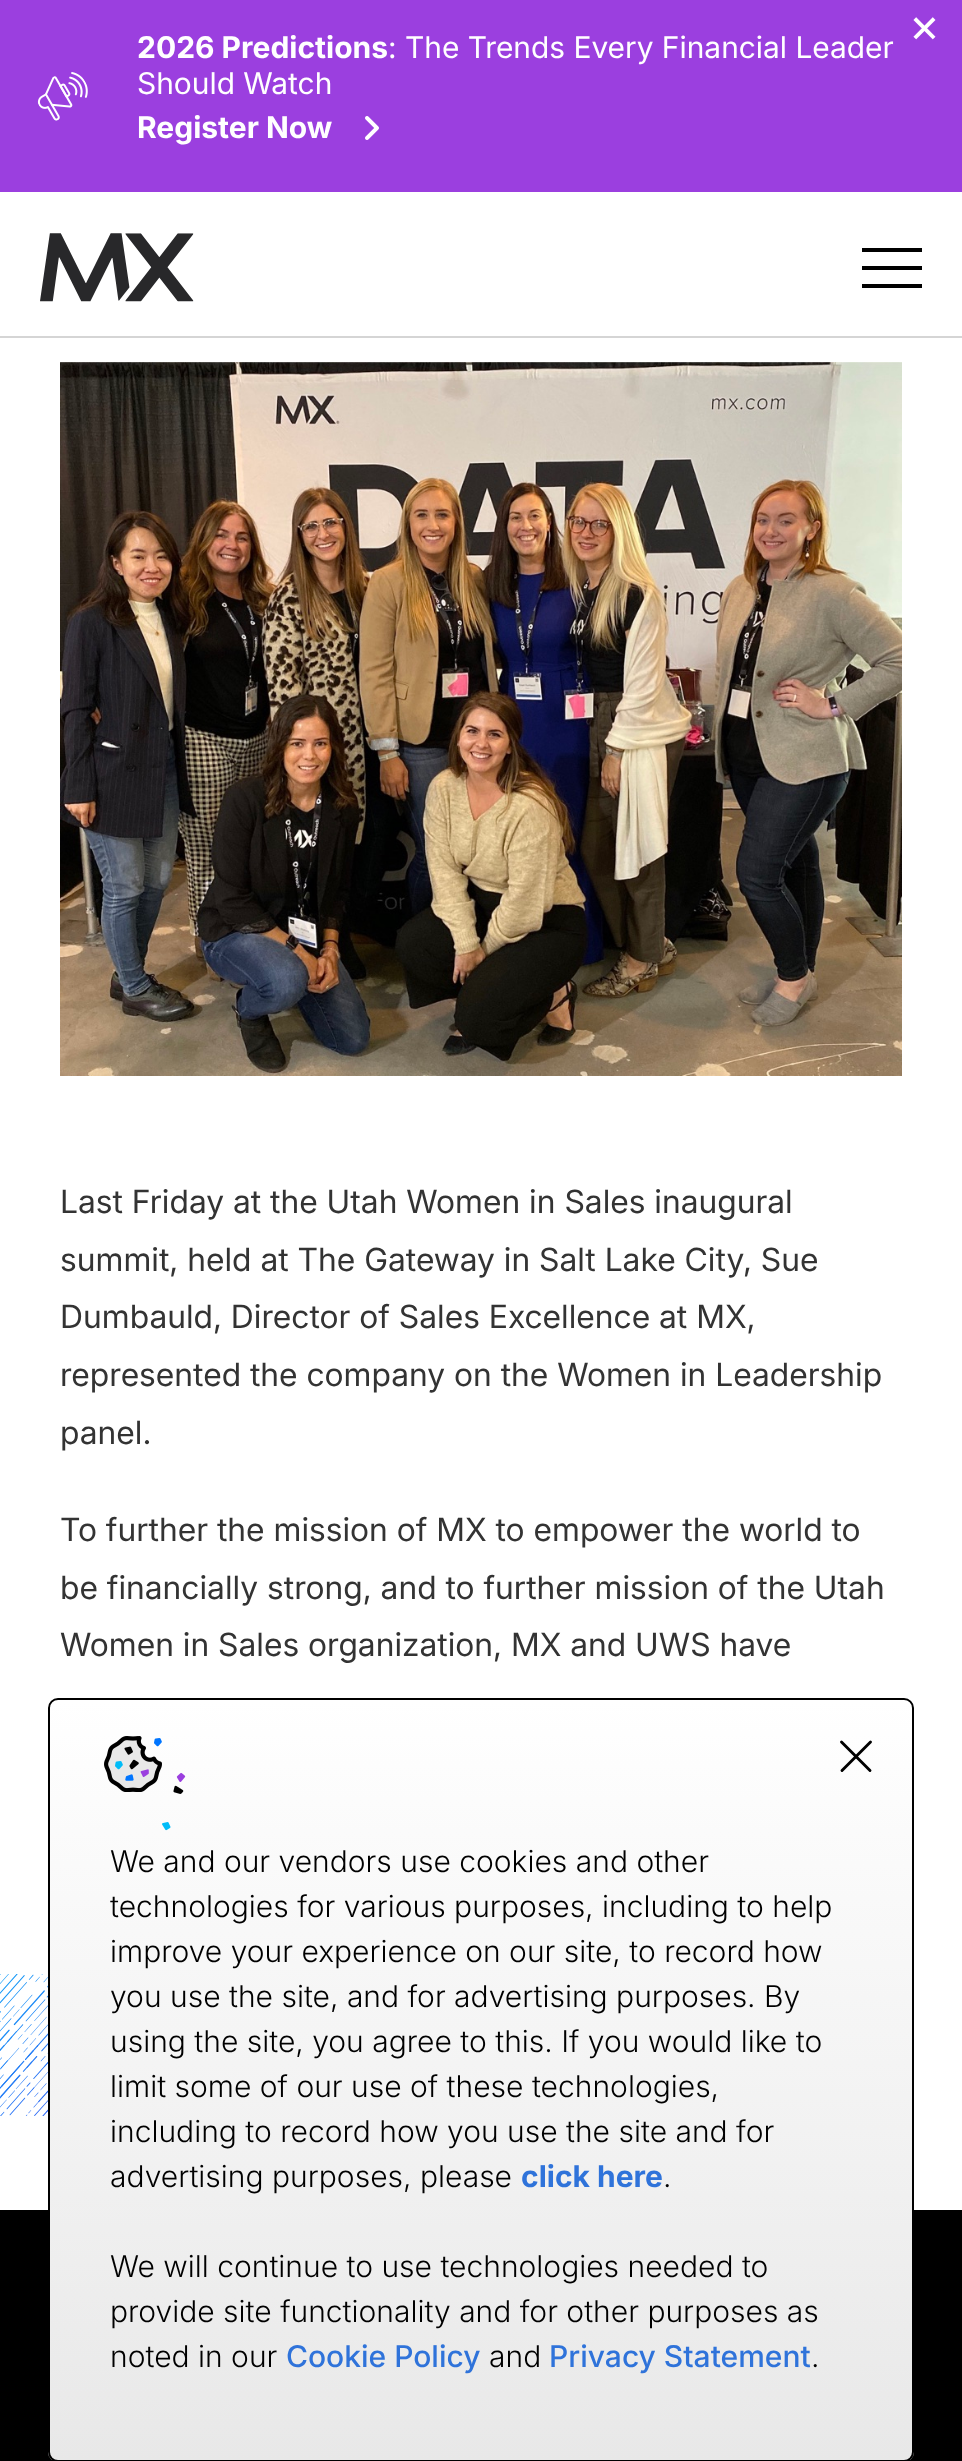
async function draw(canvas) {
	canvas.width = 962;
	canvas.height = 2461;
	const c = canvas.getContext('2d');
	c.miterLimit = 4;
	c.fontKerning = 'normal';
	async function loadImage(src) {
		const img = new Image();
		img.src = src;
		await img.decode();
		return img;
	}
	let gradient;

	c.fillStyle = '#fff';
	c.fillRect(0, 0, 962, 2461);
	c.fillStyle = '#d5d5d5';
	c.fillRect(0, 336, 962, 2);
	c.fillStyle = '#9b3fdf';
	c.fillRect(0, 0, 962, 192);
	c.font = '48px "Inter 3"';
	c.fillStyle = '#fff';
	c.fillText('×', 909, 42);
	c.drawImage(await loadImage('img1.png'), 37, 72, 51, 49);
	c.font = 'bold 30px Inter';
	c.fillText('2026 Predictions', 137, 58);
	c.font = '30px "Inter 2"';
	c.fillText(': The Trends Every Financial Leader', 388, 58);
	c.fillText('Should Watch', 137, 94);
	c.font = 'bold 30px Inter';
	c.fillText('Register Now', 137, 138);
	c.drawImage(await loadImage('img2.png'), 365, 116, 14, 24);
	c.drawImage(await loadImage('img3.png'), 40, 233, 154, 69);
	for (const [x, y, w, h, color] of [
		[862, 248, 60, 4, '#000'],
		[862, 266, 60, 4, '#000'],
		[862, 284, 60, 4, '#000'],
	]) {
		c.fillStyle = color;
		c.fillRect(x, y, w, h);
	}
	c.drawImage(await loadImage('img4.png'), 60, 362, 842, 714);
	c.font = '32px Inter';
	c.fillStyle = '#333';
	for (const [text, x, y] of [
		['Last Friday at the Utah Women in Sales inaugural', 60, 1213],
		['summit, held at The Gateway in Salt Lake City, Sue', 60, 1271],
		['Dumbauld, Director of Sales Excellence at MX,', 60, 1328],
		['represented the company on the Women in Leadership', 60, 1386],
		['panel.', 60, 1444],
		['To further the mission of MX to empower the world to', 60, 1541],
		['be financially strong, and to further mission of the Utah', 60, 1599],
		['Women in Sales organization, MX and UWS have', 60, 1656],
	]) {
		c.fillText(text, x, y);
	}
	c.drawImage(await loadImage('img5.png'), 0, 1974, 48, 142);
	c.fillStyle = '#000';
	c.fillRect(0, 2210, 962, 251);
	c.save();
	c.beginPath();
	c.roundRect(48, 1698, 866, 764, 10);
	c.clip();
	gradient = c.createLinearGradient(481, 1700, 481, 2460);
	gradient.addColorStop(0, '#fff');
	gradient.addColorStop(1, '#e8e8e8');
	c.fillStyle = gradient;
	c.fillRect(48, 1700, 866, 760);
	c.restore();
	c.beginPath();
	c.roundRect(49, 1699, 864, 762, 9);
	c.strokeStyle = '#000';
	c.lineWidth = 2;
	c.stroke();
	c.beginPath();
	c.moveTo(841.5, 1742);
	c.lineTo(870, 1770.5);
	c.moveTo(870.5, 1742);
	c.lineTo(842, 1770.5);
	c.lineWidth = 2.9;
	c.lineCap = 'round';
	c.stroke();
	c.drawImage(await loadImage('img6.png'), 104, 1736, 82, 95);
	c.font = '300 30px Inter';
	for (const [text, x, y] of [
		['We and our vendors use cookies and other', 110, 1872],
		['technologies for various purposes, including to help', 110, 1917],
		['improve your experience on our site, to record how', 110, 1962],
		['you use the site, and for advertising purposes. By', 110, 2007],
		['using the site, you agree to this. If you would like to', 110, 2052],
		['limit some of our use of these technologies,', 110, 2097],
		['including to record how you use the site and for', 110, 2142],
		['advertising purposes, please', 110, 2187],
	]) {
		c.fillText(text, x, y);
	}
	c.font = 'bold 30px Inter';
	c.fillStyle = '#2f73da';
	c.fillText('click here', 521, 2187);
	c.font = '300 30px Inter';
	c.fillStyle = '#000';
	for (const [text, x, y] of [
		['.', 663, 2187],
		['We will continue to use technologies needed to', 110, 2277],
		['provide site functionality and for other purposes as', 110, 2322],
		['noted in our', 110, 2367],
	]) {
		c.fillText(text, x, y);
	}
	c.font = '500 30px Inter';
	c.fillStyle = '#2f73da';
	c.fillText('Cookie Policy', 286, 2367);
	c.font = '300 30px Inter';
	c.fillStyle = '#000';
	c.fillText('and', 489, 2367);
	c.font = '500 30px Inter';
	c.fillStyle = '#2f73da';
	c.fillText('Privacy Statement', 549, 2367);
	c.font = '300 30px Inter';
	c.fillStyle = '#000';
	c.fillText('.', 811, 2367);
}

draw(document.querySelector('canvas'));
